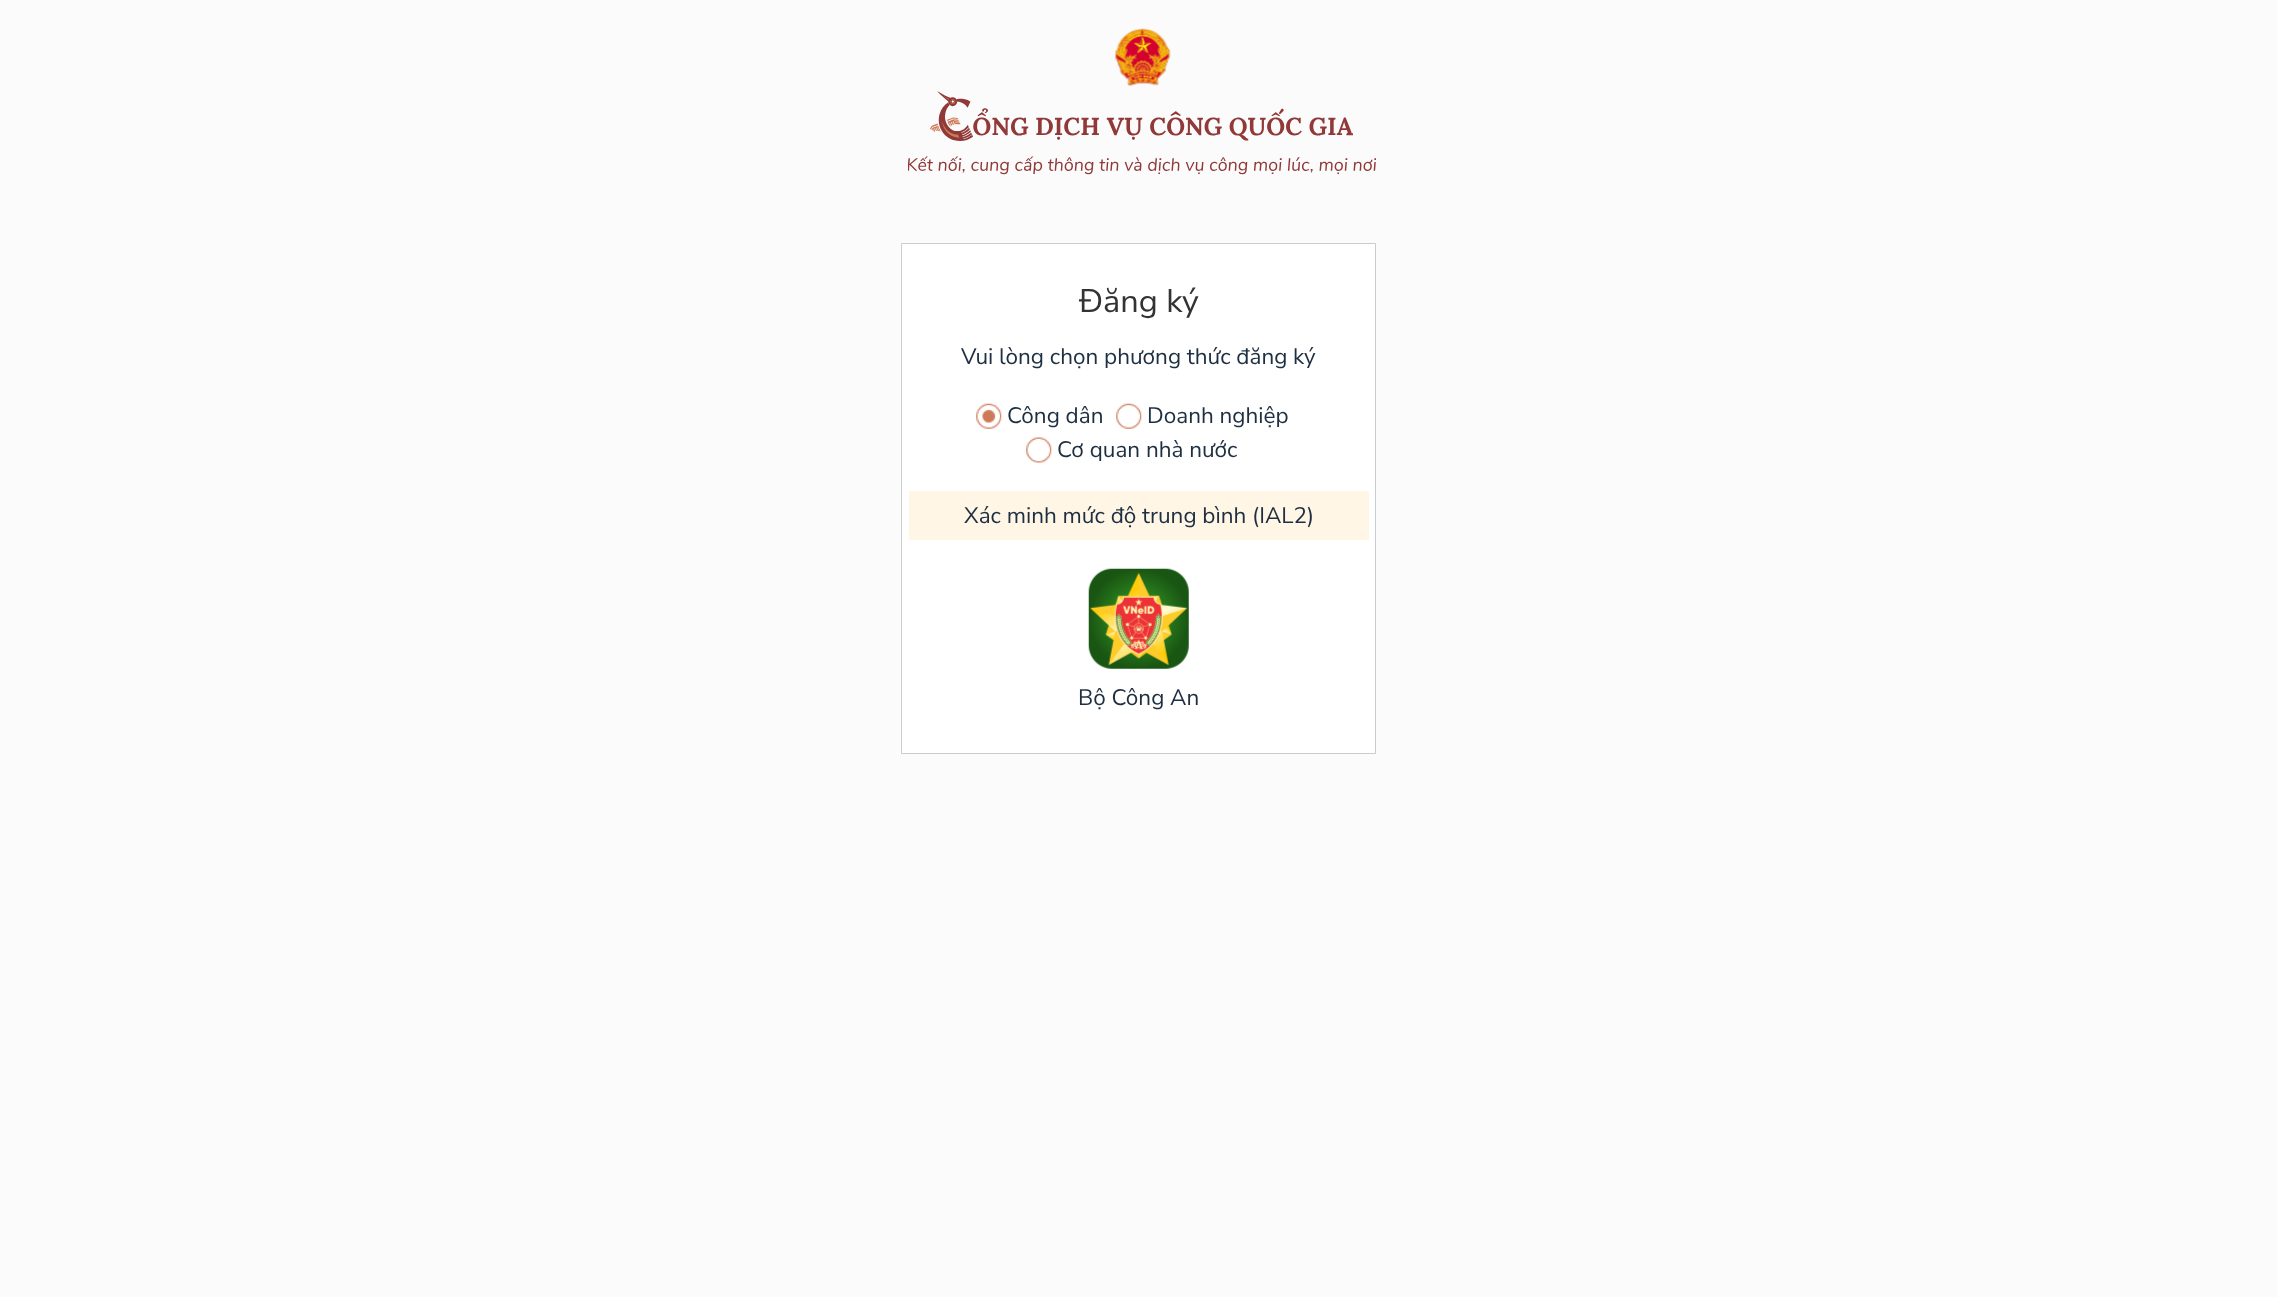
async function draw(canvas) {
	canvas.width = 2277;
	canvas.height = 1297;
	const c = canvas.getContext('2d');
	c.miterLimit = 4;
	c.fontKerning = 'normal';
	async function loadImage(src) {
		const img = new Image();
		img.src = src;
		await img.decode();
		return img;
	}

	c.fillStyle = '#fbfbfb';
	c.fillRect(0, 0, 2277, 1297);
	c.drawImage(await loadImage('img1.png'), 1114, 28, 57, 58);
	c.drawImage(await loadImage('img2.png'), 908, 91, 468, 84);
	c.fillStyle = '#fff';
	c.beginPath();
	c.rect(901.5, 243.5, 474, 510);
	c.fill();
	c.strokeStyle = '#c9cdcf';
	c.stroke();
	c.font = '32.5px Nunito Sans';
	c.fillStyle = '#333';
	c.fillText('Đăng ký', 1079, 312);
	c.font = '22.5px Nunito Sans';
	c.fillStyle = '#1e2f41';
	c.fillText('Vui lòng chọn phương thức đăng ký', 961, 364);
	c.drawImage(await loadImage('img3.png'), 976, 403, 26, 26);
	c.fillText('Công dân', 1007, 423);
	c.drawImage(await loadImage('img4.png'), 1116, 403, 26, 26);
	c.fillText('Doanh nghiệp', 1147, 423);
	c.drawImage(await loadImage('img5.png'), 1026, 437, 26, 26);
	c.fillText('Cơ quan nhà nước', 1057, 457);
	c.fillStyle = '#fff6e5';
	c.fillRect(909, 491, 460, 49);
	c.fillStyle = '#1e2f41';
	c.fillText('Xác minh mức độ trung bình (IAL2)', 964, 523);
	c.drawImage(await loadImage('img6.png'), 1088, 568, 101, 101);
	c.fillText('Bộ Công An', 1078, 705);
}

draw(document.querySelector('canvas'));
